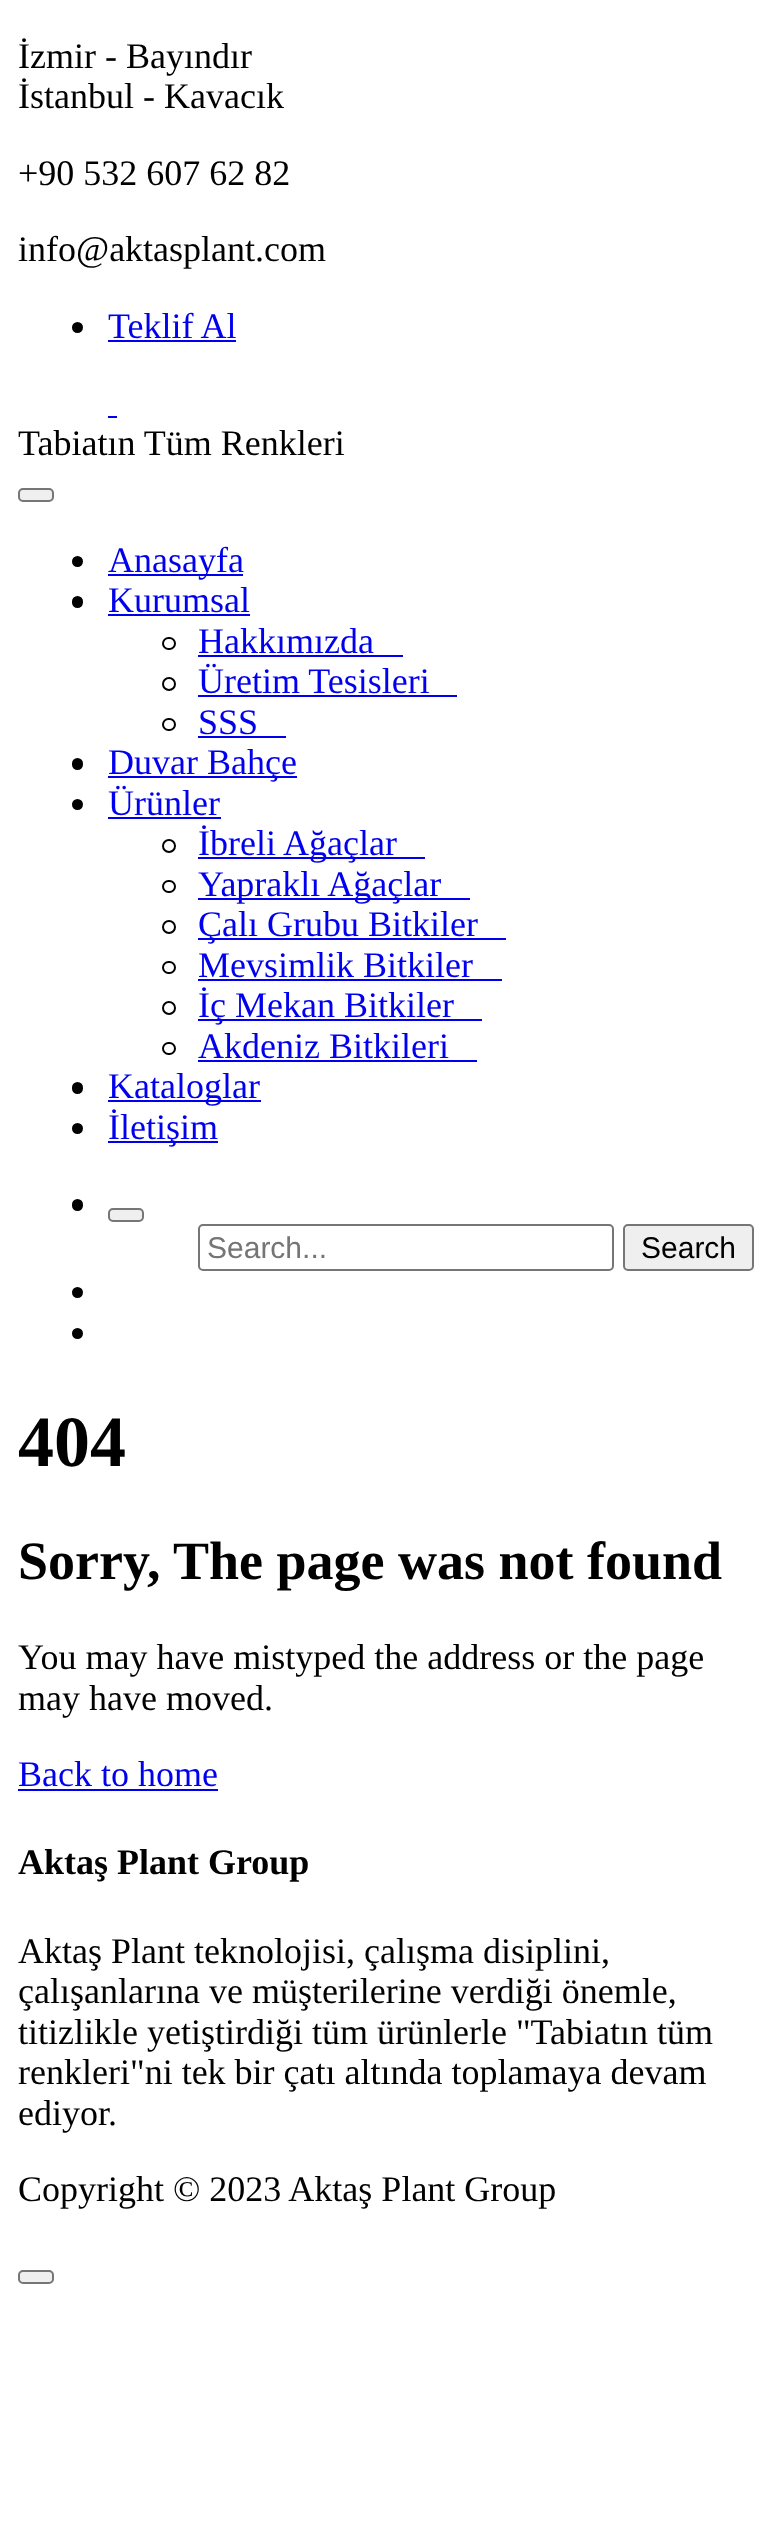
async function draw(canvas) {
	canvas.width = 773;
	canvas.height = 2545;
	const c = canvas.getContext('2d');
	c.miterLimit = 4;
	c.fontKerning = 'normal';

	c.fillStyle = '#fff';
	c.fillRect(0, 0, 773, 2545);
	c.font = '36px Liberation Serif';
	c.fillStyle = '#000';
	for (const [text, x, y] of [
		['İzmir - Bayındır', 18, 68],
		['İstanbul - Kavacık', 18, 108],
		['+90 532 607 62 82', 18, 185],
		['info@aktasplant.com', 18, 261],
	]) {
		c.fillText(text, x, y);
	}
	c.beginPath();
	c.arc(77.5, 327.5, 5.5, 0, 2 * Math.PI);
	c.fill();
	c.fillStyle = '#00e';
	c.fillText('Teklif Al', 108, 338);
	c.fillRect(108, 340, 128, 2);
	c.fillRect(108, 416, 9, 2);
	c.fillStyle = '#000';
	c.fillText('Tabiatın Tüm Renkleri', 18, 455);
	c.fillStyle = '#efefef';
	c.beginPath();
	c.roundRect(19, 489, 34, 12, 4);
	c.fill();
	c.strokeStyle = '#767676';
	c.lineWidth = 2;
	c.stroke();
	c.fillStyle = '#000';
	c.beginPath();
	c.arc(77.5, 561.5, 5.5, 0, 2 * Math.PI);
	c.fill();
	c.fillStyle = '#00e';
	c.fillRect(108, 574, 135, 2);
	c.fillText('Anasayfa', 108, 572);
	c.fillStyle = '#000';
	c.beginPath();
	c.roundRect(72, 596, 11, 12, 5.5);
	c.fill();
	c.fillStyle = '#00e';
	c.fillText('Kurumsal', 108, 612);
	c.fillRect(108, 614, 142, 2);
	c.beginPath();
	c.roundRect(163, 638, 12, 11, 5.5);
	c.strokeStyle = '#000';
	c.stroke();
	c.fillText('Hakkımızda', 198, 653);
	c.fillRect(198, 655, 205, 2);
	c.beginPath();
	c.arc(169, 684, 6, 0, 2 * Math.PI);
	c.stroke();
	c.fillText('Üretim Tesisleri', 198, 693);
	c.fillRect(198, 695, 259, 2);
	c.beginPath();
	c.roundRect(163, 719, 12, 11, 5.5);
	c.stroke();
	c.fillText('SSS', 198, 734);
	c.fillRect(198, 736, 88, 2);
	c.fillStyle = '#000';
	c.beginPath();
	c.roundRect(72, 758, 11, 12, 5.5);
	c.fill();
	c.fillStyle = '#00e';
	c.fillRect(108, 776, 189, 2);
	c.fillText('Duvar Bahçe', 108, 774);
	c.fillStyle = '#000';
	c.beginPath();
	c.arc(77.5, 804.5, 5.5, 0, 2 * Math.PI);
	c.fill();
	c.fillStyle = '#00e';
	c.fillText('Ürünler', 108, 815);
	c.fillRect(108, 817, 113, 2);
	c.beginPath();
	c.arc(169, 846, 6, 0, 2 * Math.PI);
	c.stroke();
	c.fillRect(198, 857, 198, 2);
	c.fillText('İbreli Ağaçlar', 198, 855);
	c.fillRect(396, 857, 29, 2);
	c.beginPath();
	c.roundRect(163, 881, 12, 11, 5.5);
	c.stroke();
	c.fillRect(198, 898, 272, 2);
	c.fillText('Yapraklı Ağaçlar', 198, 896);
	c.beginPath();
	c.arc(169, 927, 6, 0, 2 * Math.PI);
	c.stroke();
	c.fillRect(198, 938, 279, 2);
	c.fillText('Çalı Grubu Bitkiler', 198, 936);
	c.fillRect(477, 938, 29, 2);
	c.beginPath();
	c.roundRect(163, 962, 12, 11, 5.5);
	c.stroke();
	c.fillText('Mevsimlik Bitkiler', 198, 977);
	c.fillRect(198, 979, 304, 2);
	c.beginPath();
	c.arc(169, 1008, 6, 0, 2 * Math.PI);
	c.stroke();
	c.fillRect(198, 1019, 284, 2);
	c.fillText('İç Mekan Bitkiler', 198, 1017);
	c.beginPath();
	c.roundRect(163, 1043, 12, 11, 5.5);
	c.stroke();
	c.fillText('Akdeniz Bitkileri', 198, 1058);
	c.fillRect(198, 1060, 279, 2);
	c.fillStyle = '#000';
	c.beginPath();
	c.roundRect(72, 1082, 11, 12, 5.5);
	c.fill();
	c.fillStyle = '#00e';
	c.fillRect(108, 1100, 153, 2);
	c.fillText('Kataloglar', 108, 1098);
	c.fillStyle = '#000';
	c.beginPath();
	c.arc(77.5, 1128.5, 5.5, 0, 2 * Math.PI);
	c.fill();
	c.fillStyle = '#00e';
	c.fillRect(108, 1141, 110, 2);
	c.fillText('İletişim', 108, 1139);
	c.fillStyle = '#000';
	c.beginPath();
	c.roundRect(72, 1199, 11, 12, 5.5);
	c.fill();
	c.fillStyle = '#efefef';
	c.beginPath();
	c.roundRect(109, 1209, 34, 12, 4);
	c.fill();
	c.strokeStyle = '#767676';
	c.stroke();
	c.beginPath();
	c.roundRect(199, 1225, 414, 45, 4);
	c.stroke();
	c.font = '30px Liberation Sans';
	c.fillStyle = '#757575';
	c.fillText('Search...', 207, 1258);
	c.fillStyle = '#efefef';
	c.beginPath();
	c.roundRect(624, 1225, 129, 45, 4);
	c.fill();
	c.stroke();
	c.fillStyle = '#000';
	c.fillText('Search', 641, 1258);
	c.beginPath();
	c.arc(77.5, 1292.5, 5.5, 0, 2 * Math.PI);
	c.fill();
	c.beginPath();
	c.arc(77.5, 1333.5, 5.5, 0, 2 * Math.PI);
	c.fill();
	c.font = 'bold 72px Liberation Serif';
	c.fillText('404', 18, 1466);
	c.font = 'bold 54px Liberation Serif';
	c.fillText('Sorry, The page was not found', 18, 1579);
	c.font = '36px Liberation Serif';
	c.fillText('You may have mistyped the address or the page', 18, 1669);
	c.fillText('may have moved.', 18, 1710);
	c.fillStyle = '#00e';
	c.fillText('Back to home', 18, 1786);
	c.fillRect(18, 1789, 200, 2);
	c.font = 'bold 36px Liberation Serif';
	c.fillStyle = '#000';
	c.fillText('Aktaş Plant Group', 18, 1874);
	c.font = '36px Liberation Serif';
	for (const [text, x, y] of [
		['Aktaş Plant teknolojisi, çalışma disiplini,', 18, 1963],
		['çalışanlarına ve müşterilerine verdiği önemle,', 18, 2003],
		['titizlikle yetiştirdiği tüm ürünlerle "Tabiatın tüm', 18, 2044],
		['renkleri"ni tek bir çatı altında toplamaya devam', 18, 2084],
		['ediyor.', 18, 2125],
		['Copyright © 2023 Aktaş Plant Group', 18, 2201],
	]) {
		c.fillText(text, x, y);
	}
	c.fillStyle = '#efefef';
	c.beginPath();
	c.roundRect(19, 2271, 34, 12, 4);
	c.fill();
	c.stroke();
}

draw(document.querySelector('canvas'));
